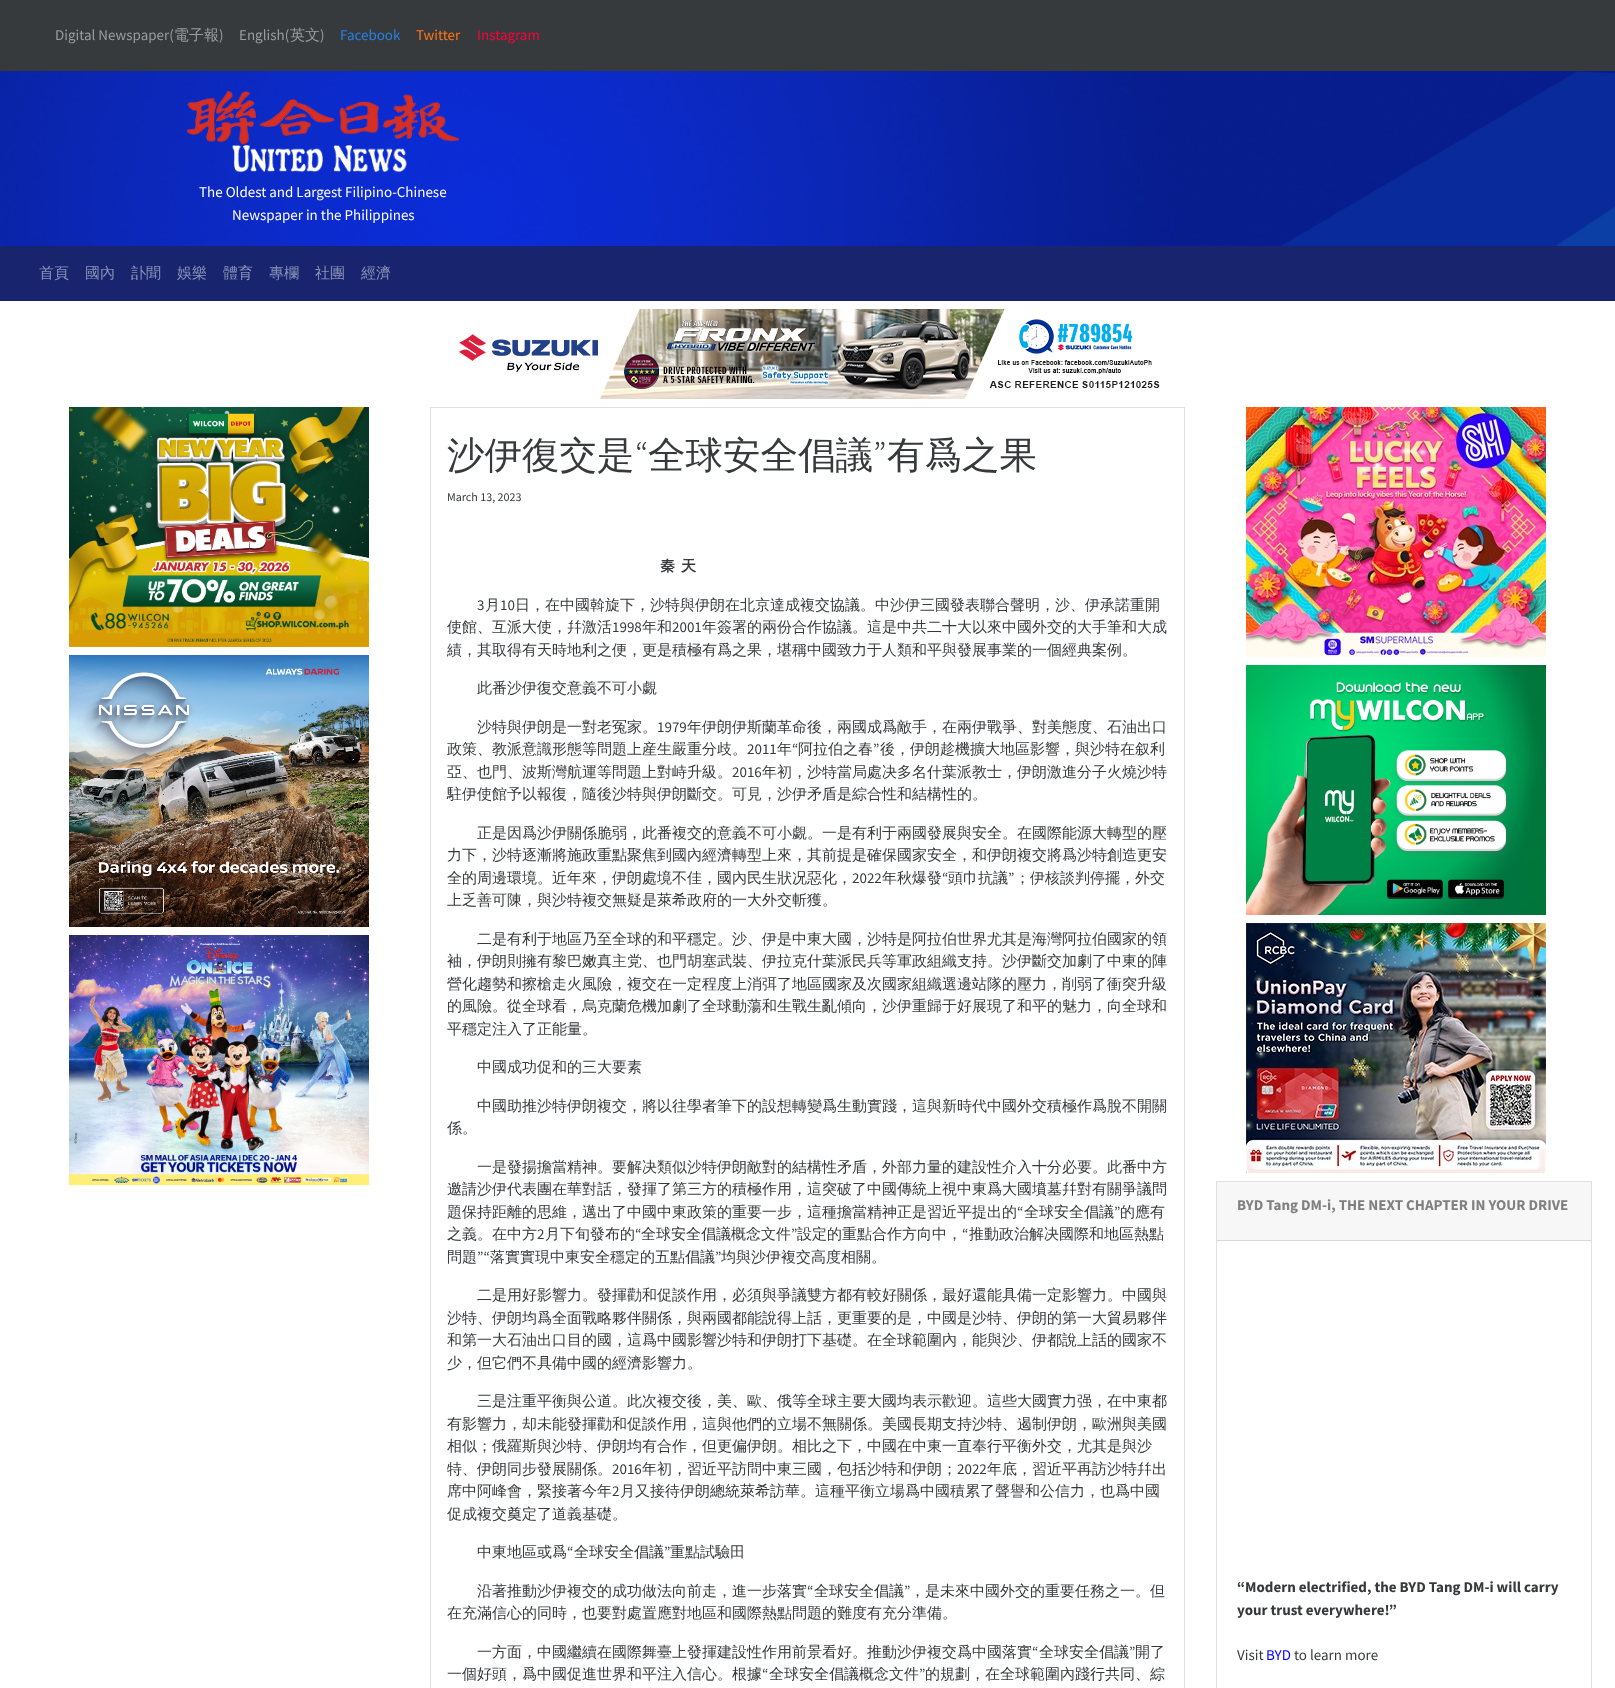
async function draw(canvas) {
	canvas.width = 1615;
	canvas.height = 1688;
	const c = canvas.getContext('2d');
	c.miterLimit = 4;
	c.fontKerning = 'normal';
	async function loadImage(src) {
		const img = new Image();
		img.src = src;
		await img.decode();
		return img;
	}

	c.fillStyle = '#fff';
	c.fillRect(0, 0, 1615, 1688);
	c.fillStyle = '#373a3c';
	c.fillRect(0, 0, 1615, 71);
	c.font = '15px Source Sans Pro';
	c.fillStyle = '#9b9d9e';
	c.fillText('Digital Newspaper(', 55, 40);
	c.font = '500 15px WenQuanYi Zen Hei';
	c.fillText('電子報', 174, 40);
	c.font = '15px Source Sans Pro';
	c.fillText(')', 219, 40);
	c.fillText('English(', 239, 40);
	c.font = '500 15px WenQuanYi Zen Hei';
	c.fillText('英文', 290, 40);
	c.font = '15px Source Sans Pro';
	c.fillText(')', 320, 40);
	c.fillStyle = '#2780e3';
	c.fillText('Facebook', 340, 40);
	c.fillStyle = '#ff7518';
	c.fillText('Twitter', 416, 40);
	c.fillStyle = '#ff0039';
	c.fillText('Instagram', 477, 40);
	c.drawImage(await loadImage('img1.png'), 0, 71, 1615, 175);
	c.drawImage(await loadImage('img2.png'), 187, 91, 272, 82);
	c.fillStyle = '#fff';
	c.fillText('The Oldest and Largest Filipino-Chinese', 199, 197);
	c.fillText('Newspaper in the Philippines', 232, 220);
	c.fillStyle = '#18256e';
	c.fillRect(0, 246, 1615, 55);
	c.font = '500 15px WenQuanYi Zen Hei';
	c.fillStyle = '#8c92b7';
	for (const [text, x, y] of [
		['首頁', 39, 278],
		['國內', 85, 278],
		['訃聞', 131, 278],
		['娛樂', 177, 278],
		['體育', 223, 278],
		['專欄', 269, 278],
		['社團', 315, 278],
		['經濟', 361, 278],
	]) {
		c.fillText(text, x, y);
	}
	c.drawImage(await loadImage('img3.png'), 459, 309, 701, 90);
	c.drawImage(await loadImage('img4.png'), 69, 407, 300, 240);
	c.drawImage(await loadImage('img5.png'), 69, 655, 300, 272);
	c.drawImage(await loadImage('img6.png'), 69, 935, 300, 250);
	c.strokeStyle = '#dfdfdf';
	c.strokeRect(430.5, 407.5, 754, 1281);
	c.font = '500 37.5px WenQuanYi Zen Hei';
	c.fillStyle = '#373a3c';
	c.fillText('沙伊復交是', 447, 468);
	c.font = '300 37.5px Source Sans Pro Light';
	c.fillText('“', 635, 468);
	c.font = '500 37.5px WenQuanYi Zen Hei';
	c.fillText('全球安全倡議', 648, 468);
	c.font = '300 37.5px Source Sans Pro Light';
	c.fillText('”', 873, 468);
	c.font = '500 37.5px WenQuanYi Zen Hei';
	c.fillText('有爲之果', 887, 468);
	c.font = '12px Source Sans Pro';
	c.fillText('March 13, 2023', 447, 501);
	c.font = 'bold 15px WenQuanYi Zen Hei';
	c.fillText('秦', 660, 571);
	c.fillText('天', 681, 571);
	c.font = '15px Source Sans Pro';
	c.fillText('3', 477, 610);
	c.font = '500 15px WenQuanYi Zen Hei';
	c.fillText('月', 485, 610);
	c.font = '15px Source Sans Pro';
	c.fillText('10', 500, 610);
	c.font = '500 15px WenQuanYi Zen Hei';
	c.fillText('日，在中國斡旋下，沙特與伊朗在北京達成複交協議。中沙伊三國發表聯合聲明，沙、伊承諾重開', 515, 610);
	c.fillText('使館、互派大使，幷激活', 447, 632);
	c.font = '15px Source Sans Pro';
	c.fillText('1998', 612, 632);
	c.font = '500 15px WenQuanYi Zen Hei';
	c.fillText('年和', 642, 632);
	c.font = '15px Source Sans Pro';
	c.fillText('2001', 672, 632);
	c.font = '500 15px WenQuanYi Zen Hei';
	for (const [text, x, y] of [
		['年簽署的兩份合作協議。這是中共二十大以來中國外交的大手筆和大成', 702, 632],
		['績，其取得有天時地利之便，更是積極有爲之果，堪稱中國致力于人類和平與發展事業的一個經典案例。', 447, 655],
		['此番沙伊復交意義不可小覷', 477, 693],
		['沙特與伊朗是一對老冤家。', 477, 732],
	]) {
		c.fillText(text, x, y);
	}
	c.font = '15px Source Sans Pro';
	c.fillText('1979', 657, 732);
	c.font = '500 15px WenQuanYi Zen Hei';
	c.fillText('年伊朗伊斯蘭革命後，兩國成爲敵手，在兩伊戰爭、對美態度、石油出口', 687, 732);
	c.fillText('政策、教派意識形態等問題上産生嚴重分歧。', 447, 754);
	c.font = '15px Source Sans Pro';
	c.fillText('2011', 747, 754);
	c.font = '500 15px WenQuanYi Zen Hei';
	c.fillText('年', 777, 754);
	c.font = '15px Source Sans Pro';
	c.fillText('“', 792, 754);
	c.font = '500 15px WenQuanYi Zen Hei';
	c.fillText('阿拉伯之春', 798, 754);
	c.font = '15px Source Sans Pro';
	c.fillText('”', 873, 754);
	c.font = '500 15px WenQuanYi Zen Hei';
	c.fillText('後，伊朗趁機擴大地區影響，與沙特在叙利', 880, 754);
	c.fillText('亞、也門、波斯灣航運等問題上對峙升級。', 447, 777);
	c.font = '15px Source Sans Pro';
	c.fillText('2016', 732, 777);
	c.font = '500 15px WenQuanYi Zen Hei';
	for (const [text, x, y] of [
		['年初，沙特當局處决多名什葉派教士，伊朗激進分子火燒沙特', 762, 777],
		['駐伊使館予以報復，隨後沙特與伊朗斷交。可見，沙伊矛盾是綜合性和結構性的。', 447, 799],
		['正是因爲沙伊關係脆弱，此番複交的意義不可小覷。一是有利于兩國發展與安全。在國際能源大轉型的壓', 477, 838],
		['力下，沙特逐漸將施政重點聚焦到國內經濟轉型上來，其前提是確保國家安全，和伊朗複交將爲沙特創造更安', 447, 860],
		['全的周邊環境。近年來，伊朗處境不佳，國內民生狀况惡化，', 447, 883],
	]) {
		c.fillText(text, x, y);
	}
	c.font = '15px Source Sans Pro';
	c.fillText('2022', 852, 883);
	c.font = '500 15px WenQuanYi Zen Hei';
	c.fillText('年秋爆發', 882, 883);
	c.font = '15px Source Sans Pro';
	c.fillText('“', 942, 883);
	c.font = '500 15px WenQuanYi Zen Hei';
	c.fillText('頭巾抗議', 948, 883);
	c.font = '15px Source Sans Pro';
	c.fillText('”', 1008, 883);
	c.font = '500 15px WenQuanYi Zen Hei';
	for (const [text, x, y] of [
		['；伊核談判停擺，外交', 1015, 883],
		['上乏善可陳，與沙特複交無疑是萊希政府的一大外交斬獲。', 447, 905],
		['二是有利于地區乃至全球的和平穩定。沙、伊是中東大國，沙特是阿拉伯世界尤其是海灣阿拉伯國家的領', 477, 944],
		['袖，伊朗則擁有黎巴嫩真主党、也門胡塞武裝、伊拉克什葉派民兵等軍政組織支持。沙伊斷交加劇了中東的陣', 447, 966],
		['營化趨勢和擦槍走火風險，複交在一定程度上消弭了地區國家及次國家組織選邊站隊的壓力，削弱了衝突升級', 447, 989],
		['的風險。從全球看，烏克蘭危機加劇了全球動蕩和生戰生亂傾向，沙伊重歸于好展現了和平的魅力，向全球和', 447, 1011],
		['平穩定注入了正能量。', 447, 1034],
		['中國成功促和的三大要素', 477, 1072],
		['中國助推沙特伊朗複交，將以往學者筆下的設想轉變爲生動實踐，這與新時代中國外交積極作爲脫不開關', 477, 1111],
		['係。', 447, 1133],
		['一是發揚擔當精神。要解决類似沙特伊朗敵對的結構性矛盾，外部力量的建設性介入十分必要。此番中方', 477, 1172],
		['邀請沙伊代表團在華對話，發揮了第三方的積極作用，這突破了中國傳統上視中東爲大國墳墓幷對有關爭議問', 447, 1194],
		['題保持距離的思維，邁出了中國中東政策的重要一步，這種擔當精神正是習近平提出的', 447, 1217],
	]) {
		c.fillText(text, x, y);
	}
	c.font = '15px Source Sans Pro';
	c.fillText('“', 1017, 1217);
	c.font = '500 15px WenQuanYi Zen Hei';
	c.fillText('全球安全倡議', 1024, 1217);
	c.font = '15px Source Sans Pro';
	c.fillText('”', 1114, 1217);
	c.font = '500 15px WenQuanYi Zen Hei';
	c.fillText('的應有', 1120, 1217);
	c.fillText('之義。在中方', 447, 1239);
	c.font = '15px Source Sans Pro';
	c.fillText('2', 537, 1239);
	c.font = '500 15px WenQuanYi Zen Hei';
	c.fillText('月下旬發布的', 545, 1239);
	c.font = '15px Source Sans Pro';
	c.fillText('“', 635, 1239);
	c.font = '500 15px WenQuanYi Zen Hei';
	c.fillText('全球安全倡議概念文件', 641, 1239);
	c.font = '15px Source Sans Pro';
	c.fillText('”', 791, 1239);
	c.font = '500 15px WenQuanYi Zen Hei';
	c.fillText('設定的重點合作方向中，', 797, 1239);
	c.font = '15px Source Sans Pro';
	c.fillText('“', 962, 1239);
	c.font = '500 15px WenQuanYi Zen Hei';
	c.fillText('推動政治解决國際和地區熱點', 969, 1239);
	c.fillText('問題', 447, 1262);
	c.font = '15px Source Sans Pro';
	c.fillText('”“', 477, 1262);
	c.font = '500 15px WenQuanYi Zen Hei';
	c.fillText('落實實現中東安全穩定的五點倡議', 490, 1262);
	c.font = '15px Source Sans Pro';
	c.fillText('”', 715, 1262);
	c.font = '500 15px WenQuanYi Zen Hei';
	for (const [text, x, y] of [
		['均與沙伊複交高度相關。', 721, 1262],
		['二是用好影響力。發揮勸和促談作用，必須與爭議雙方都有較好關係，最好還能具備一定影響力。中國與', 477, 1300],
		['沙特、伊朗均爲全面戰略夥伴關係，與兩國都能說得上話，更重要的是，中國是沙特、伊朗的第一大貿易夥伴', 447, 1323],
		['和第一大石油出口目的國，這爲中國影響沙特和伊朗打下基礎。在全球範圍內，能與沙、伊都說上話的國家不', 447, 1345],
		['少，但它們不具備中國的經濟影響力。', 447, 1368],
		['三是注重平衡與公道。此次複交後，美、歐、俄等全球主要大國均表示歡迎。這些大國實力强，在中東都', 477, 1406],
		['有影響力，却未能發揮勸和促談作用，這與他們的立場不無關係。美國長期支持沙特、遏制伊朗，歐洲與美國', 447, 1429],
		['相似；俄羅斯與沙特、伊朗均有合作，但更偏伊朗。相比之下，中國在中東一直奉行平衡外交，尤其是與沙', 447, 1451],
		['特、伊朗同步發展關係。', 447, 1474],
	]) {
		c.fillText(text, x, y);
	}
	c.font = '15px Source Sans Pro';
	c.fillText('2016', 612, 1474);
	c.font = '500 15px WenQuanYi Zen Hei';
	c.fillText('年初，習近平訪問中東三國，包括沙特和伊朗；', 642, 1474);
	c.font = '15px Source Sans Pro';
	c.fillText('2022', 957, 1474);
	c.font = '500 15px WenQuanYi Zen Hei';
	c.fillText('年底，習近平再訪沙特幷出', 987, 1474);
	c.fillText('席中阿峰會，緊接著今年', 447, 1496);
	c.font = '15px Source Sans Pro';
	c.fillText('2', 612, 1496);
	c.font = '500 15px WenQuanYi Zen Hei';
	for (const [text, x, y] of [
		['月又接待伊朗總統萊希訪華。這種平衡立場爲中國積累了聲譽和公信力，也爲中國', 620, 1496],
		['促成複交奠定了道義基礎。', 447, 1519],
		['中東地區或爲', 477, 1557],
	]) {
		c.fillText(text, x, y);
	}
	c.font = '15px Source Sans Pro';
	c.fillText('“', 567, 1557);
	c.font = '500 15px WenQuanYi Zen Hei';
	c.fillText('全球安全倡議', 574, 1557);
	c.font = '15px Source Sans Pro';
	c.fillText('”', 664, 1557);
	c.font = '500 15px WenQuanYi Zen Hei';
	c.fillText('重點試驗田', 670, 1557);
	c.fillText('沿著推動沙伊複交的成功做法向前走，進一步落實', 477, 1596);
	c.font = '15px Source Sans Pro';
	c.fillText('“', 807, 1596);
	c.font = '500 15px WenQuanYi Zen Hei';
	c.fillText('全球安全倡議', 814, 1596);
	c.font = '15px Source Sans Pro';
	c.fillText('”', 904, 1596);
	c.font = '500 15px WenQuanYi Zen Hei';
	for (const [text, x, y] of [
		['，是未來中國外交的重要任務之一。但', 910, 1596],
		['在充滿信心的同時，也要對處置應對地區和國際熱點問題的難度有充分準備。', 447, 1618],
		['一方面，中國繼續在國際舞臺上發揮建設性作用前景看好。推動沙伊複交爲中國落實', 477, 1657],
	]) {
		c.fillText(text, x, y);
	}
	c.font = '15px Source Sans Pro';
	c.fillText('“', 1032, 1657);
	c.font = '500 15px WenQuanYi Zen Hei';
	c.fillText('全球安全倡議', 1039, 1657);
	c.font = '15px Source Sans Pro';
	c.fillText('”', 1129, 1657);
	c.font = '500 15px WenQuanYi Zen Hei';
	c.fillText('開了', 1135, 1657);
	c.fillText('一個好頭，爲中國促進世界和平注入信心。根據', 447, 1679);
	c.font = '15px Source Sans Pro';
	c.fillText('“', 762, 1679);
	c.font = '500 15px WenQuanYi Zen Hei';
	c.fillText('全球安全倡議概念文件', 769, 1679);
	c.font = '15px Source Sans Pro';
	c.fillText('”', 919, 1679);
	c.font = '500 15px WenQuanYi Zen Hei';
	c.fillText('的規劃，在全球範圍內踐行共同、綜', 925, 1679);
	c.drawImage(await loadImage('img7.png'), 1246, 407, 300, 250);
	c.drawImage(await loadImage('img8.png'), 1246, 665, 300, 250);
	c.drawImage(await loadImage('img9.png'), 1246, 923, 300, 250);
	c.strokeRect(1216.5, 1181.5, 375, 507);
	c.fillStyle = '#f7f7f7';
	c.fillRect(1217, 1182, 374, 58);
	c.fillStyle = '#d8d8d8';
	c.fillRect(1217, 1240, 374, 1);
	c.font = 'bold 15px Source Sans Pro';
	c.fillStyle = '#808080';
	c.fillText('BYD Tang DM-i, THE NEXT CHAPTER IN YOUR DRIVE', 1237, 1210);
	c.fillStyle = '#373a3c';
	c.fillText('“Modern electrified, the BYD Tang DM-i will carry', 1237, 1592);
	c.fillText('your trust everywhere!”', 1237, 1615);
	c.font = '15px Source Sans Pro';
	c.fillText('Visit', 1237, 1660);
	c.fillStyle = '#00f';
	c.fillText('BYD', 1266, 1660);
	c.fillStyle = '#373a3c';
	c.fillText('to learn more', 1294, 1660);
}

draw(document.querySelector('canvas'));
